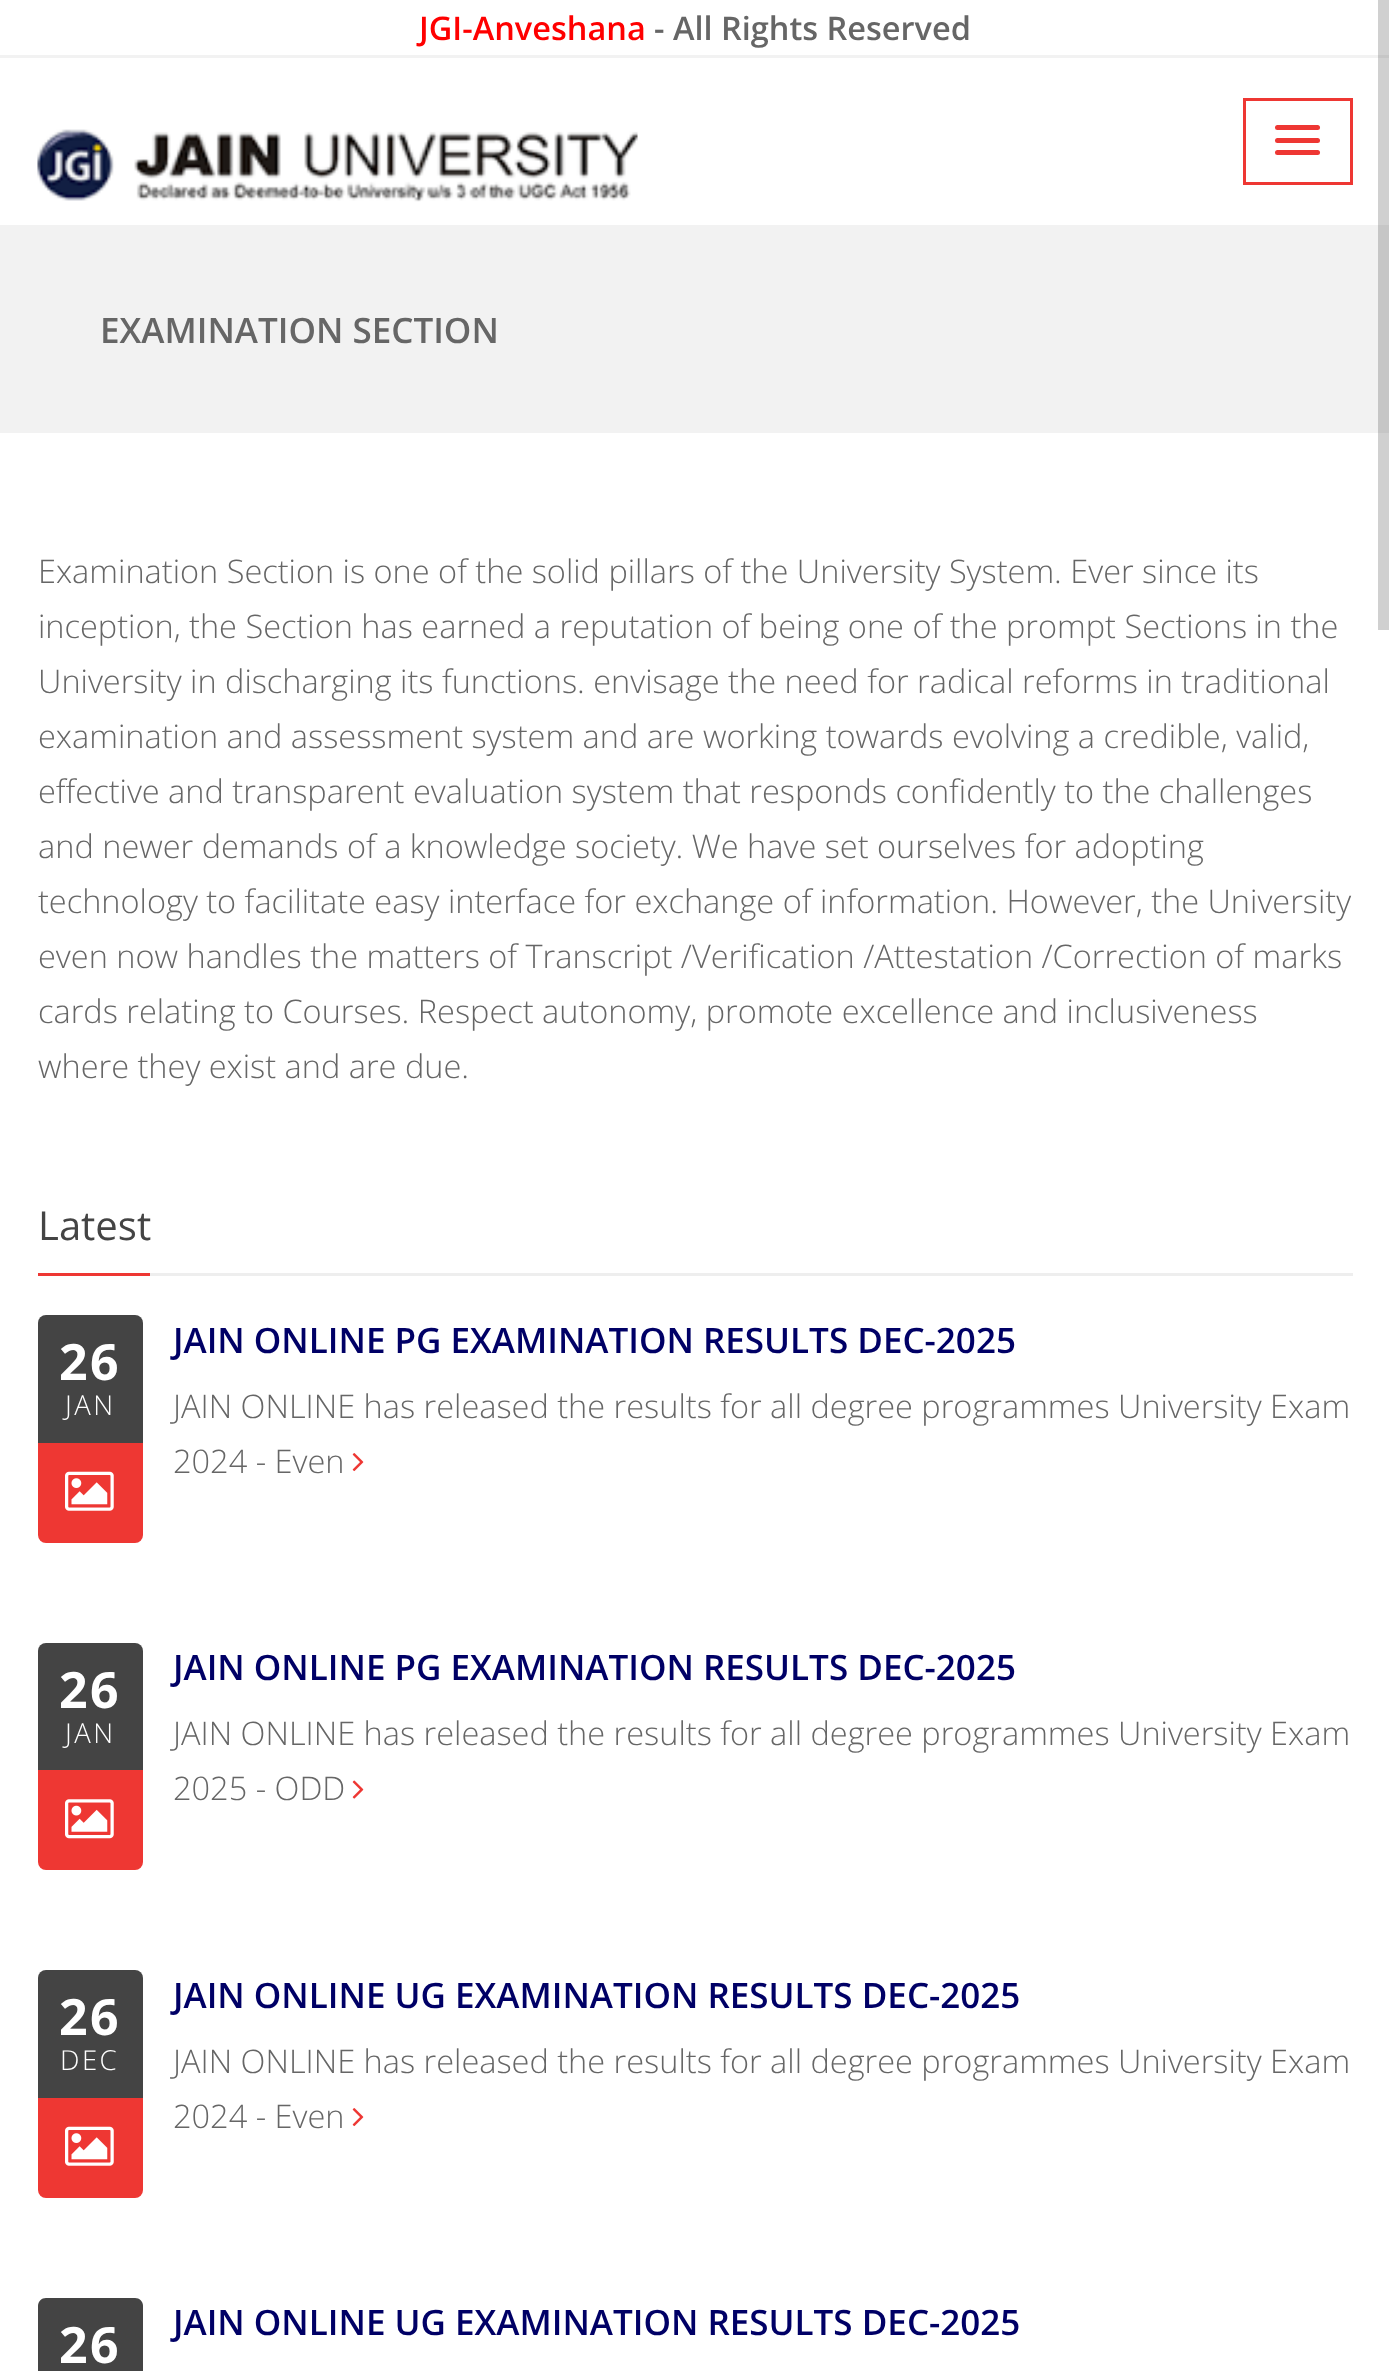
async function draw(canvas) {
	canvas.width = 1389;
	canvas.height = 2371;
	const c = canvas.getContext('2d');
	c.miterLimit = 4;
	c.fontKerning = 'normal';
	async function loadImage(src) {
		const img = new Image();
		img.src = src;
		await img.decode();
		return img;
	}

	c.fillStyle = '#fff';
	c.fillRect(0, 0, 1389, 2371);
	for (const [x, y, w, h, color] of [
		[1378, 0, 11, 630, '#d0d0d0'],
		[0, 55, 1378, 3, '#f2f2f2'],
		[1378, 55, 11, 3, '#c6c6c6'],
	]) {
		c.fillStyle = color;
		c.fillRect(x, y, w, h);
	}
	c.font = '600 32.5px Open Sans';
	c.fillStyle = '#f00';
	c.fillText('JGI-Anveshana', 419, 40);
	c.fillStyle = '#666';
	c.fillText('- All Rights Reserved', 654, 40);
	c.drawImage(await loadImage('img1.png'), 37, 129, 601, 73);
	c.strokeStyle = '#ee3733';
	c.lineWidth = 3;
	c.strokeRect(1244.5, 99.5, 107, 84);
	c.fillStyle = '#ee3733';
	c.beginPath();
	c.roundRect(1275, 125, 45, 5, 2.5);
	c.fill();
	c.beginPath();
	c.roundRect(1275, 138, 45, 5, 2.5);
	c.fill();
	c.beginPath();
	c.roundRect(1275, 150, 45, 5, 2.5);
	c.fill();
	c.fillStyle = '#f2f2f2';
	c.fillRect(0, 225, 1378, 208);
	c.fillStyle = '#c6c6c6';
	c.fillRect(1378, 225, 11, 208);
	c.font = '600 35px Open Sans';
	c.fillStyle = '#666';
	c.fillText('EXAMINATION SECTION', 100, 343);
	c.font = '300 32.5px Open Sans';
	for (const [text, x, y] of [
		['Examination Section is one of the solid pillars of the University System. Ever since its', 38, 583],
		['inception, the Section has earned a reputation of being one of the prompt Sections in the', 38, 638],
		['University in discharging its functions. envisage the need for radical reforms in traditional', 38, 693],
		['examination and assessment system and are working towards evolving a credible, valid,', 38, 748],
		['effective and transparent evaluation system that responds confidently to the challenges', 38, 803],
		['and newer demands of a knowledge society. We have set ourselves for adopting', 38, 858],
		['technology to facilitate easy interface for exchange of information. However, the University', 38, 913],
		['even now handles the matters of Transcript /Verification /Attestation /Correction of marks', 38, 968],
		['cards relating to Courses. Respect autonomy, promote excellence and inclusiveness', 38, 1023],
		['where they exist and are due.', 38, 1078],
	]) {
		c.fillText(text, x, y);
	}
	c.fillStyle = '#eee';
	c.fillRect(150, 1273, 1203, 3);
	c.font = '40px Open Sans';
	c.fillStyle = '#444';
	c.fillText('Latest', 38, 1240);
	c.fillStyle = '#ee3733';
	c.fillRect(38, 1273, 112, 3);
	c.fillStyle = '#444';
	c.beginPath();
	c.roundRect(38, 1315, 105, 128, [8, 8, 0, 0]);
	c.fill();
	c.letterSpacing = '2.5px';
	c.font = 'bold 50px Open Sans';
	c.fillStyle = '#fff';
	c.fillText('26', 59, 1380);
	c.font = '300 27.5px Open Sans';
	c.fillText('JAN', 65, 1415);
	c.fillStyle = '#ee3733';
	c.beginPath();
	c.roundRect(38, 1443, 105, 100, [0, 0, 8, 8]);
	c.fill();
	c.drawImage(await loadImage('img2.png'), 65, 1471, 49, 40);
	c.letterSpacing = '0px';
	c.font = '600 35px Open Sans';
	c.fillStyle = '#006';
	c.fillText('JAIN ONLINE PG EXAMINATION RESULTS DEC-2025', 173, 1353);
	c.font = '300 32.5px Open Sans';
	c.fillStyle = '#666';
	c.fillText('JAIN ONLINE has released the results for all degree programmes University Exam', 173, 1418);
	c.fillText('2024 - Even', 173, 1473);
	c.drawImage(await loadImage('img3.png'), 352, 1453, 12, 19);
	c.fillStyle = '#444';
	c.beginPath();
	c.roundRect(38, 1643, 105, 127, [8, 8, 0, 0]);
	c.fill();
	c.letterSpacing = '2.5px';
	c.font = 'bold 50px Open Sans';
	c.fillStyle = '#fff';
	c.fillText('26', 59, 1708);
	c.font = '300 27.5px Open Sans';
	c.fillText('JAN', 65, 1743);
	c.fillStyle = '#ee3733';
	c.beginPath();
	c.roundRect(38, 1770, 105, 100, [0, 0, 8, 8]);
	c.fill();
	c.drawImage(await loadImage('img4.png'), 65, 1799, 49, 40);
	c.letterSpacing = '0px';
	c.font = '600 35px Open Sans';
	c.fillStyle = '#006';
	c.fillText('JAIN ONLINE PG EXAMINATION RESULTS DEC-2025', 173, 1680);
	c.font = '300 32.5px Open Sans';
	c.fillStyle = '#666';
	c.fillText('JAIN ONLINE has released the results for all degree programmes University Exam', 173, 1745);
	c.fillText('2025 - ODD', 173, 1800);
	c.drawImage(await loadImage('img5.png'), 352, 1780, 12, 19);
	c.fillStyle = '#444';
	c.beginPath();
	c.roundRect(38, 1970, 105, 128, [8, 8, 0, 0]);
	c.fill();
	c.letterSpacing = '2.5px';
	c.font = 'bold 50px Open Sans';
	c.fillStyle = '#fff';
	c.fillText('26', 59, 2035);
	c.font = '300 27.5px Open Sans';
	c.fillText('DEC', 60, 2070);
	c.fillStyle = '#ee3733';
	c.beginPath();
	c.roundRect(38, 2098, 105, 100, [0, 0, 8, 8]);
	c.fill();
	c.drawImage(await loadImage('img2.png'), 65, 2126, 49, 40);
	c.letterSpacing = '0px';
	c.font = '600 35px Open Sans';
	c.fillStyle = '#006';
	c.fillText('JAIN ONLINE UG EXAMINATION RESULTS DEC-2025', 173, 2008);
	c.font = '300 32.5px Open Sans';
	c.fillStyle = '#666';
	c.fillText('JAIN ONLINE has released the results for all degree programmes University Exam', 173, 2073);
	c.fillText('2024 - Even', 173, 2128);
	c.drawImage(await loadImage('img3.png'), 352, 2108, 12, 19);
	c.fillStyle = '#444';
	c.beginPath();
	c.moveTo(46, 2298);
	c.lineTo(135, 2298);
	c.bezierCurveTo(139.5, 2298, 143, 2301.5, 143, 2306);
	c.lineTo(143, 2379);
	c.lineTo(38, 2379);
	c.lineTo(38, 2306);
	c.bezierCurveTo(38, 2301.5, 41.5, 2298, 46, 2298);
	c.closePath();
	c.fill();
	c.letterSpacing = '2.5px';
	c.font = 'bold 50px Open Sans';
	c.fillStyle = '#fff';
	c.fillText('26', 59, 2363);
	c.letterSpacing = '0px';
	c.font = '600 35px Open Sans';
	c.fillStyle = '#006';
	c.fillText('JAIN ONLINE UG EXAMINATION RESULTS DEC-2025', 173, 2335);
}

draw(document.querySelector('canvas'));
